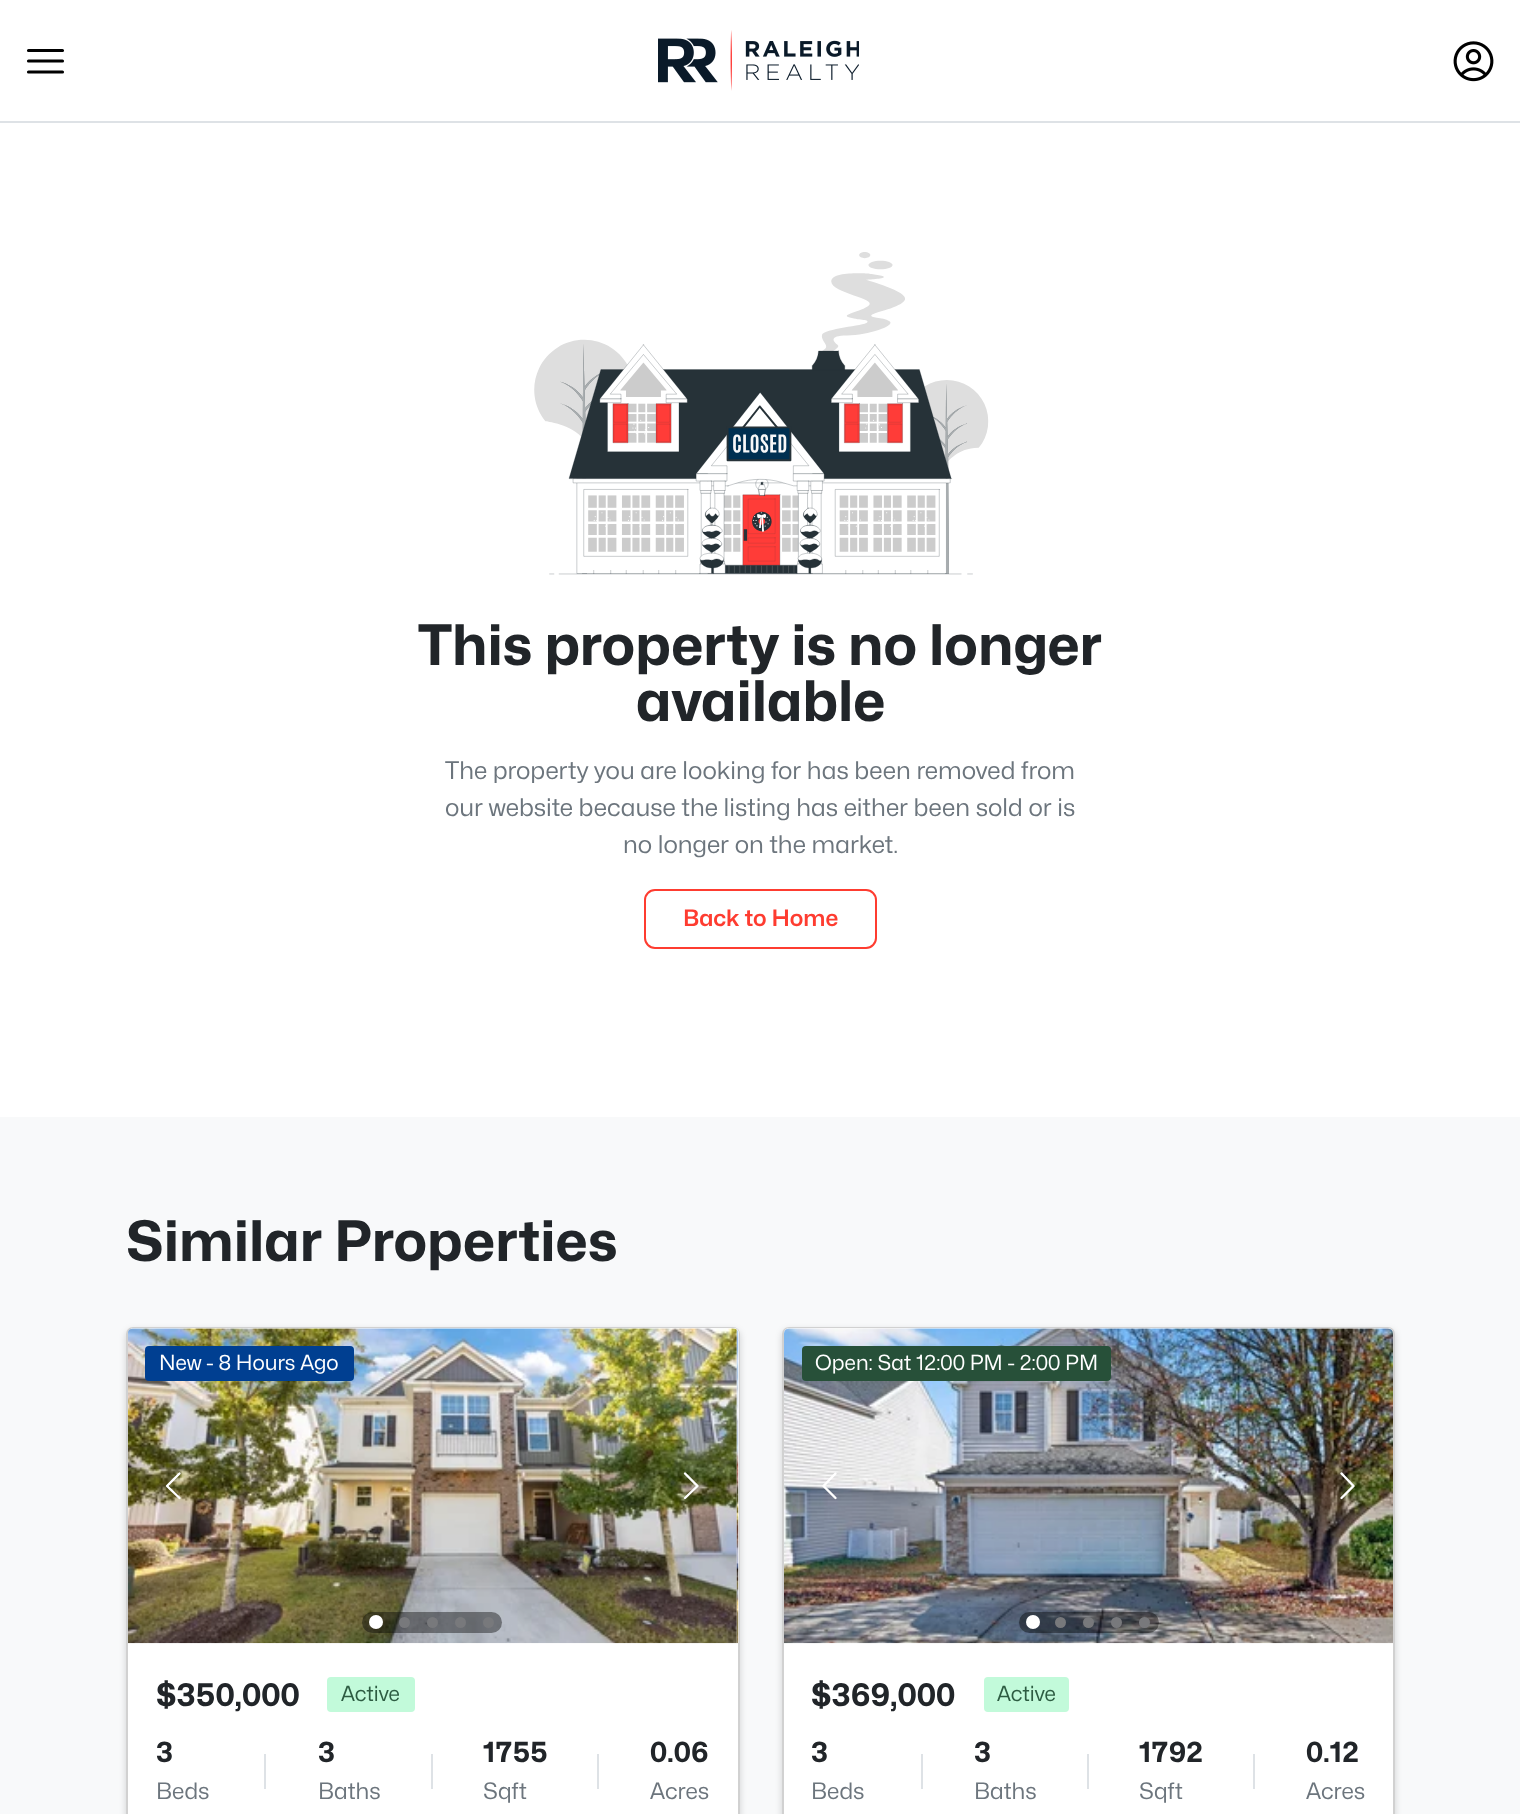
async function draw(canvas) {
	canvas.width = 1520;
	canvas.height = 1814;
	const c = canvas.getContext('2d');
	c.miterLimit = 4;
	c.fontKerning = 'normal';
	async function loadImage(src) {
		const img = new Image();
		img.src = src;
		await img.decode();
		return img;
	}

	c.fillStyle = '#fff';
	c.fillRect(0, 0, 1520, 1814);
	c.fillStyle = '#dee2e6';
	c.fillRect(0, 121, 1520, 2);
	c.beginPath();
	c.moveTo(28.5, 50.5);
	c.lineTo(62.5, 50.5);
	c.moveTo(28.5, 61);
	c.lineTo(62.5, 61);
	c.moveTo(28.5, 72);
	c.lineTo(62.5, 72);
	c.strokeStyle = '#000';
	c.lineWidth = 3.1;
	c.lineCap = 'round';
	c.lineJoin = 'round';
	c.stroke();
	c.drawImage(await loadImage('img1.png'), 658, 30, 201, 61);
	c.drawImage(await loadImage('img2.png'), 1453, 41, 41, 41);
	c.drawImage(await loadImage('img3.png'), 534, 252, 455, 323);
	c.font = 'bold 56px Mona Sans';
	c.fillStyle = '#212529';
	c.fillText('This property is no longer', 418, 665);
	c.fillText('available', 636, 721);
	c.font = '24.5px Mona Sans';
	c.fillStyle = '#6c757d';
	for (const [text, x, y] of [
		['The property you are looking for has been removed from', 445, 779],
		['our website because the listing has either been sold or is', 445, 816],
		['no longer on the market.', 623, 853],
	]) {
		c.fillText(text, x, y);
	}
	c.beginPath();
	c.roundRect(645, 890, 231, 58, 10);
	c.strokeStyle = '#fe3c30';
	c.lineWidth = 2;
	c.lineJoin = 'miter';
	c.stroke();
	c.font = '600 22.75px Mona Sans';
	c.fillStyle = '#fe3c30';
	c.fillText('Back to Home', 683, 926);
	c.fillStyle = '#f8f9fa';
	c.fillRect(0, 1117, 1520, 697);
	c.font = 'bold 56px Mona Sans';
	c.fillStyle = '#212529';
	c.fillText('Similar Properties', 126, 1261);
	c.fillStyle = '#00000029';
	c.filter = 'blur(3.5px)';
	c.beginPath();
	c.roundRect(126, 1330, 614, 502, 7);
	c.fill();
	c.filter = 'none';
	c.fillStyle = '#fff';
	c.beginPath();
	c.roundRect(126, 1327, 614, 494, 7);
	c.fill();
	c.beginPath();
	c.roundRect(127, 1328, 612, 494, 6);
	c.strokeStyle = '#0000002e';
	c.stroke();
	c.save();
	c.beginPath();
	c.roundRect(128, 1328, 611, 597, 5);
	c.clip();
	c.fillStyle = '#fafafa';
	c.beginPath();
	c.roundRect(128, 1328, 609, 315, [5, 0, 0, 0]);
	c.fill();
	c.restore();
	c.drawImage(await loadImage('img4.png'), 128, 1328, 609, 316);
	c.save();
	c.beginPath();
	c.roundRect(128, 1328, 611, 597, 5);
	c.clip();
	c.fillStyle = '#fafafa';
	c.fillRect(737, 1328, 2, 315);
	c.restore();
	c.drawImage(await loadImage('img5.png'), 736, 1329, 3, 315);
	c.beginPath();
	c.moveTo(179.5, 1498);
	c.lineTo(167, 1486);
	c.lineTo(179.5, 1473.5);
	c.strokeStyle = '#fff';
	c.lineWidth = 2.4;
	c.lineJoin = 'round';
	c.stroke();
	c.beginPath();
	c.moveTo(685, 1473.5);
	c.lineTo(697.5, 1486);
	c.lineTo(685, 1498);
	c.stroke();
	c.fillStyle = '#00000066';
	c.beginPath();
	c.roundRect(362, 1612, 140, 21, 10.5);
	c.fill();
	c.fillStyle = '#fff';
	c.beginPath();
	c.arc(376, 1622, 7, 0, 2 * Math.PI);
	c.fill();
	c.fillStyle = '#78797c';
	c.beginPath();
	c.arc(404.5, 1622.5, 5.5, 0, 2 * Math.PI);
	c.fill();
	c.beginPath();
	c.arc(432.5, 1622.5, 5.5, 0, 2 * Math.PI);
	c.fill();
	c.beginPath();
	c.arc(460.5, 1622.5, 5.5, 0, 2 * Math.PI);
	c.fill();
	c.beginPath();
	c.arc(488.5, 1622.5, 5.5, 0, 2 * Math.PI);
	c.fill();
	c.fillStyle = '#003f91';
	c.beginPath();
	c.roundRect(145, 1346, 209, 35, 4);
	c.fill();
	c.font = '21px Mona Sans';
	c.fillStyle = '#fff';
	c.fillText('New - 8 Hours Ago', 159, 1370);
	c.font = 'bold 31.5px Mona Sans';
	c.fillStyle = '#212529';
	c.fillText('$350,000', 156, 1706);
	c.fillStyle = '#c2fada';
	c.beginPath();
	c.roundRect(327, 1677, 88, 35, 4);
	c.fill();
	c.font = '21px Mona Sans';
	c.fillStyle = '#2d5c42';
	c.fillText('Active', 341, 1701);
	c.font = 'bold 28px Mona Sans';
	c.fillStyle = '#212529';
	c.fillText('3', 156, 1762);
	c.fillStyle = '#dee2e6';
	c.fillRect(264, 1754, 2, 35);
	c.font = '22.75px Mona Sans';
	c.fillStyle = '#6c757d';
	c.fillText('Beds', 156, 1799);
	c.font = 'bold 28px Mona Sans';
	c.fillStyle = '#212529';
	c.fillText('3', 318, 1762);
	c.font = '22.75px Mona Sans';
	c.fillStyle = '#6c757d';
	c.fillText('Baths', 318, 1799);
	c.fillStyle = '#dee2e6';
	c.fillRect(431, 1754, 2, 35);
	c.font = 'bold 28px Mona Sans';
	c.fillStyle = '#212529';
	c.fillText('1755', 483, 1762);
	c.font = '22.75px Mona Sans';
	c.fillStyle = '#6c757d';
	c.fillText('Sqft', 483, 1799);
	c.fillStyle = '#dee2e6';
	c.fillRect(597, 1754, 2, 35);
	c.font = 'bold 28px Mona Sans';
	c.fillStyle = '#212529';
	c.fillText('0.06', 650, 1762);
	c.font = '22.75px Mona Sans';
	c.fillStyle = '#6c757d';
	c.fillText('Acres', 650, 1799);
	c.fillStyle = '#00000029';
	c.filter = 'blur(3.5px)';
	c.beginPath();
	c.roundRect(782, 1330, 613, 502, 7);
	c.fill();
	c.filter = 'none';
	c.fillStyle = '#fff';
	c.beginPath();
	c.roundRect(782, 1327, 613, 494, 7);
	c.fill();
	c.beginPath();
	c.roundRect(783, 1328, 611, 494, 6);
	c.strokeStyle = '#0000002e';
	c.lineWidth = 2;
	c.lineJoin = 'miter';
	c.stroke();
	c.fillStyle = '#fafafa';
	c.beginPath();
	c.roundRect(784, 1328, 609, 315, [5, 5, 0, 0]);
	c.fill();
	c.drawImage(await loadImage('img6.png'), 784, 1328, 609, 316);
	c.beginPath();
	c.moveTo(835.5, 1498);
	c.lineTo(823.5, 1486);
	c.lineTo(835.5, 1473.5);
	c.strokeStyle = '#fff';
	c.lineWidth = 2.4;
	c.lineJoin = 'round';
	c.stroke();
	c.beginPath();
	c.moveTo(1341.5, 1473.5);
	c.lineTo(1353.5, 1486);
	c.lineTo(1341.5, 1498);
	c.stroke();
	c.fillStyle = '#00000066';
	c.beginPath();
	c.roundRect(1019, 1612, 140, 21, 10.5);
	c.fill();
	c.fillStyle = '#fff';
	c.beginPath();
	c.arc(1033, 1622, 7, 0, 2 * Math.PI);
	c.fill();
	c.fillStyle = '#78797c';
	c.beginPath();
	c.arc(1060.5, 1622.5, 5.5, 0, 2 * Math.PI);
	c.fill();
	c.beginPath();
	c.arc(1088.5, 1622.5, 5.5, 0, 2 * Math.PI);
	c.fill();
	c.beginPath();
	c.arc(1116.5, 1622.5, 5.5, 0, 2 * Math.PI);
	c.fill();
	c.beginPath();
	c.arc(1144.5, 1622.5, 5.5, 0, 2 * Math.PI);
	c.fill();
	c.fillStyle = '#275039';
	c.beginPath();
	c.roundRect(802, 1346, 309, 35, 4);
	c.fill();
	c.font = '21px Mona Sans';
	c.fillStyle = '#fff';
	c.fillText('Open: Sat 12:00 PM - 2:00 PM', 815, 1370);
	c.font = 'bold 31.5px Mona Sans';
	c.fillStyle = '#212529';
	c.fillText('$369,000', 811, 1706);
	c.fillStyle = '#c2fada';
	c.beginPath();
	c.roundRect(984, 1677, 85, 35, 4);
	c.fill();
	c.font = '21px Mona Sans';
	c.fillStyle = '#2d5c42';
	c.fillText('Active', 997, 1701);
	c.font = 'bold 28px Mona Sans';
	c.fillStyle = '#212529';
	c.fillText('3', 811, 1762);
	c.fillStyle = '#dee2e6';
	c.fillRect(921, 1754, 2, 35);
	c.font = '22.75px Mona Sans';
	c.fillStyle = '#6c757d';
	c.fillText('Beds', 811, 1799);
	c.font = 'bold 28px Mona Sans';
	c.fillStyle = '#212529';
	c.fillText('3', 974, 1762);
	c.font = '22.75px Mona Sans';
	c.fillStyle = '#6c757d';
	c.fillText('Baths', 974, 1799);
	c.fillStyle = '#dee2e6';
	c.fillRect(1087, 1754, 2, 35);
	c.font = 'bold 28px Mona Sans';
	c.fillStyle = '#212529';
	c.fillText('1792', 1139, 1762);
	c.font = '22.75px Mona Sans';
	c.fillStyle = '#6c757d';
	c.fillText('Sqft', 1139, 1799);
	c.fillStyle = '#dee2e6';
	c.fillRect(1253, 1754, 2, 35);
	c.font = 'bold 28px Mona Sans';
	c.fillStyle = '#212529';
	c.fillText('0.12', 1306, 1762);
	c.font = '22.75px Mona Sans';
	c.fillStyle = '#6c757d';
	c.fillText('Acres', 1306, 1799);
}

draw(document.querySelector('canvas'));
